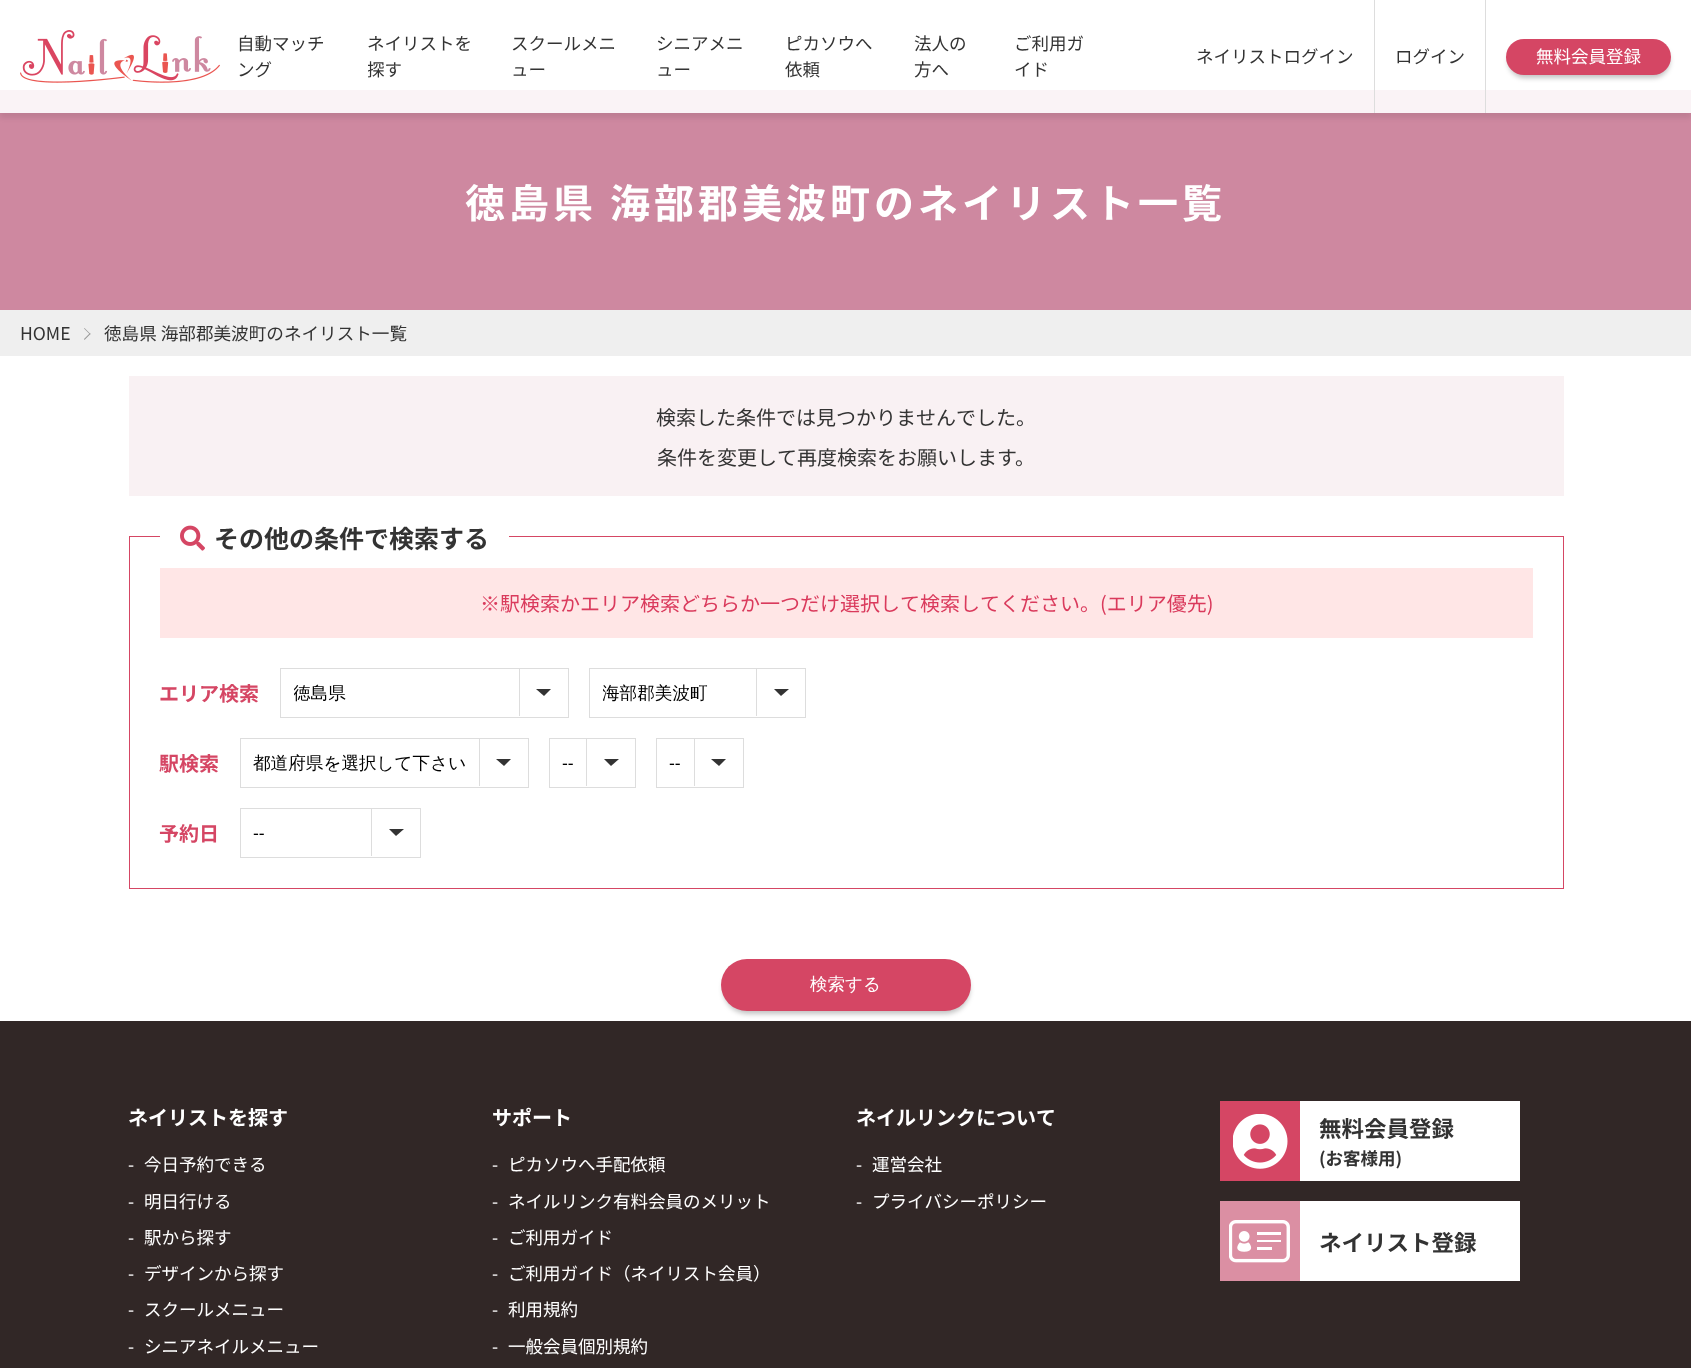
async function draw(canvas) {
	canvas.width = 1691;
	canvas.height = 1368;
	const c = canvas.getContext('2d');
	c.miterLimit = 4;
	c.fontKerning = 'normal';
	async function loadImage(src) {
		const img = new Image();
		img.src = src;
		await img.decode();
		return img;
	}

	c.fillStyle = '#fff';
	c.fillRect(0, 0, 1691, 1368);
	c.fillStyle = '#ce88a0';
	c.fillRect(0, 90, 1691, 220);
	c.save();
	c.beginPath();
	c.moveTo(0, 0);
	c.lineTo(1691, 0);
	c.lineTo(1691, 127);
	c.lineTo(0, 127);
	c.closePath();
	c.moveTo(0, 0);
	c.lineTo(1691, 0);
	c.lineTo(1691, 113);
	c.lineTo(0, 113);
	c.closePath();
	c.clip('evenodd');
	c.fillStyle = '#00000014';
	c.filter = 'blur(2.5px)';
	c.beginPath();
	c.rect(0, 5, 1691, 113);
	c.fill();
	c.filter = 'none';
	c.restore();
	c.fillStyle = '#ffffffe6';
	c.fillRect(0, 90, 1691, 23);
	c.drawImage(await loadImage('img1.png'), 20, 30, 200, 53);
	c.font = '17.5px Noto Sans JP';
	c.fillStyle = '#333';
	for (const [text, x, y] of [
		['自動マッチ', 237, 50],
		['ング', 237, 76],
		['ネイリストを', 367, 50],
	]) {
		c.fillText(text, x, y);
	}
	c.save();
	c.beginPath();
	c.rect(368, 0, 113, 113);
	c.clip();
	c.fillText('探す', 367, 76);
	c.restore();
	for (const [text, x, y] of [
		['スクールメニ', 511, 50],
		['ュー', 511, 76],
		['シニアメニ', 656, 50],
		['ュー', 656, 76],
		['ピカソウへ', 785, 50],
		['依頼', 785, 76],
		['法人の', 914, 50],
		['方へ', 914, 76],
		['ご利用ガ', 1014, 50],
		['イド', 1014, 76],
	]) {
		c.fillText(text, x, y);
	}
	c.fillStyle = '#ddd';
	c.fillRect(1374, 0, 1, 113);
	c.fillStyle = '#333';
	c.fillText('ネイリストログイン', 1196, 63);
	c.fillStyle = '#ddd';
	c.fillRect(1485, 0, 1, 113);
	c.fillStyle = '#333';
	c.fillText('ログイン', 1395, 63);
	c.fillStyle = '#0000003d';
	c.filter = 'blur(2.5px)';
	c.beginPath();
	c.roundRect(1508, 44, 162, 34, 17);
	c.fill();
	c.filter = 'none';
	c.fillStyle = '#d54664';
	c.beginPath();
	c.roundRect(1506, 39, 165, 36, 18);
	c.fill();
	c.fillStyle = '#fff';
	c.fillText('無料会員登録', 1536, 63);
	c.letterSpacing = '4px';
	c.font = 'bold 40px Noto Sans JP';
	c.fillText('徳島県 海部郡美波町のネイリスト一覧', 465, 218);
	c.fillStyle = '#efefef';
	c.fillRect(0, 310, 1691, 46);
	c.letterSpacing = '0px';
	c.font = '17.6px Noto Sans JP';
	c.fillStyle = '#333';
	c.fillText('HOME', 20, 340);
	c.fillStyle = '#9a9a9a';
	c.beginPath();
	c.moveTo(84, 328.5);
	c.lineTo(84.5, 328);
	c.lineTo(90.5, 334);
	c.lineTo(90, 334.5);
	c.closePath();
	c.fill();
	c.beginPath();
	c.moveTo(84, 339);
	c.lineTo(90, 333);
	c.lineTo(90.5, 334);
	c.lineTo(84.5, 340);
	c.closePath();
	c.fill();
	c.fillStyle = '#333';
	c.fillText('徳島県 海部郡美波町のネイリスト一覧', 104, 340);
	c.fillStyle = '#f9f1f3';
	c.fillRect(129, 376, 1435, 120);
	c.font = '20px Noto Sans JP';
	c.fillStyle = '#333';
	c.fillText('検索した条件では見つかりませんでした。', 656, 425);
	c.fillText('条件を変更して再度検索をお願いします。', 657, 465);
	c.strokeStyle = '#d54664';
	c.strokeRect(129.5, 536.5, 1434, 352);
	c.fillStyle = '#fff';
	c.fillRect(160, 536, 349, 1);
	c.drawImage(await loadImage('img2.png'), 180, 525, 25, 26);
	c.font = 'bold 25px Noto Sans JP';
	c.fillStyle = '#333';
	c.fillText('その他の条件で検索する', 214, 548);
	c.fillStyle = '#ffe6e6';
	c.fillRect(160, 568, 1373, 70);
	c.font = '20px Noto Sans JP';
	c.fillStyle = '#da3a5c';
	c.fillText('※駅検索かエリア検索どちらか一つだけ選択して検索してください。(エリア優先)', 480, 611);
	c.font = 'bold 20px Noto Sans JP';
	c.fillStyle = '#d54664';
	c.fillText('エリア検索', 159, 701);
	c.strokeStyle = '#ddd';
	c.strokeRect(280.5, 668.5, 288, 49);
	c.save();
	c.beginPath();
	c.rect(294, 683, 214, 20);
	c.clip();
	c.font = '500 17.6px WenQuanYi Zen Hei';
	c.fillStyle = '#000';
	c.fillText('徳島県', 293, 699);
	c.restore();
	c.fillStyle = '#ddd';
	c.fillRect(519, 669, 1, 47);
	c.fillStyle = '#333';
	c.beginPath();
	c.moveTo(536, 689);
	c.lineTo(551, 689);
	c.lineTo(544, 696);
	c.closePath();
	c.fill();
	c.strokeRect(589.5, 668.5, 216, 49);
	c.save();
	c.beginPath();
	c.rect(603, 683, 142, 20);
	c.clip();
	c.font = '500 17.6px WenQuanYi Zen Hei';
	c.fillStyle = '#000';
	c.fillText('海部郡美波町', 602, 699);
	c.restore();
	c.fillStyle = '#ddd';
	c.fillRect(756, 669, 1, 47);
	c.fillStyle = '#333';
	c.beginPath();
	c.moveTo(774, 689);
	c.lineTo(789, 689);
	c.lineTo(781, 696);
	c.closePath();
	c.fill();
	c.fillStyle = '#d54664';
	c.fillText('駅検索', 159, 771);
	c.strokeRect(240.5, 738.5, 288, 49);
	c.font = '500 17.6px WenQuanYi Zen Hei';
	c.fillStyle = '#000';
	c.fillText('都道府県を選択して下さい', 253, 769);
	c.fillStyle = '#ddd';
	c.fillRect(479, 739, 1, 47);
	c.fillStyle = '#333';
	c.beginPath();
	c.moveTo(496, 759);
	c.lineTo(511, 759);
	c.lineTo(504, 766);
	c.closePath();
	c.fill();
	c.strokeRect(549.5, 738.5, 86, 49);
	c.font = '17.6px Liberation Sans';
	c.fillStyle = '#000';
	c.fillText('--', 562, 769);
	c.fillStyle = '#ddd';
	c.fillRect(586, 739, 1, 47);
	c.fillStyle = '#333';
	c.beginPath();
	c.moveTo(604, 759);
	c.lineTo(619, 759);
	c.lineTo(611, 766);
	c.closePath();
	c.fill();
	c.strokeRect(656.5, 738.5, 87, 49);
	c.fillStyle = '#000';
	c.fillText('--', 669, 769);
	c.fillStyle = '#ddd';
	c.fillRect(694, 739, 1, 47);
	c.fillStyle = '#333';
	c.beginPath();
	c.moveTo(711, 759);
	c.lineTo(726, 759);
	c.lineTo(719, 766);
	c.closePath();
	c.fill();
	c.font = 'bold 20px Noto Sans JP';
	c.fillStyle = '#d54664';
	c.fillText('予約日', 159, 841);
	c.strokeRect(240.5, 808.5, 180, 49);
	c.font = '17.6px Liberation Sans';
	c.fillStyle = '#000';
	c.fillText('--', 253, 839);
	c.fillStyle = '#ddd';
	c.fillRect(371, 809, 1, 47);
	c.fillStyle = '#333';
	c.beginPath();
	c.moveTo(389, 829);
	c.lineTo(404, 829);
	c.lineTo(396, 836);
	c.closePath();
	c.fill();
	c.fillStyle = '#312726';
	c.fillRect(0, 1021, 1691, 347);
	c.fillStyle = '#0000003d';
	c.filter = 'blur(2.5px)';
	c.beginPath();
	c.roundRect(723, 964, 247, 50, 25);
	c.fill();
	c.filter = 'none';
	c.fillStyle = '#d54664';
	c.beginPath();
	c.roundRect(721, 959, 250, 52, 26);
	c.fill();
	c.font = '500 17.5px WenQuanYi Zen Hei';
	c.fillStyle = '#fff';
	c.fillText('検索する', 810, 990);
	c.font = 'bold 20px Noto Sans JP';
	c.fillText('ネイリストを探す', 128, 1125);
	c.font = '17.5px Noto Sans JP';
	for (const [text, x, y] of [
		['-', 128, 1171],
		['今日予約できる', 144, 1171],
		['-', 128, 1208],
		['明日行ける', 144, 1208],
		['-', 128, 1244],
		['駅から探す', 144, 1244],
		['-', 128, 1280],
		['デザインから探す', 144, 1280],
		['-', 128, 1316],
		['スクールメニュー', 144, 1316],
		['-', 128, 1353],
		['シニアネイルメニュー', 144, 1353],
	]) {
		c.fillText(text, x, y);
	}
	c.font = 'bold 20px Noto Sans JP';
	c.fillText('サポート', 492, 1125);
	c.font = '17.5px Noto Sans JP';
	for (const [text, x, y] of [
		['-', 492, 1171],
		['ピカソウへ手配依頼', 508, 1171],
		['-', 492, 1208],
		['ネイルリンク有料会員のメリット', 508, 1208],
		['-', 492, 1244],
		['ご利用ガイド', 508, 1244],
		['-', 492, 1280],
		['ご利用ガイド（ネイリスト会員）', 508, 1280],
		['-', 492, 1316],
		['利用規約', 508, 1316],
		['-', 492, 1353],
		['一般会員個別規約', 508, 1353],
	]) {
		c.fillText(text, x, y);
	}
	c.font = 'bold 20px Noto Sans JP';
	c.fillText('ネイルリンクについて', 856, 1125);
	c.font = '17.5px Noto Sans JP';
	for (const [text, x, y] of [
		['-', 856, 1171],
		['運営会社', 872, 1171],
		['-', 856, 1208],
		['プライバシーポリシー', 872, 1208],
	]) {
		c.fillText(text, x, y);
	}
	c.fillRect(1300, 1101, 220, 80);
	c.fillStyle = '#d54664';
	c.fillRect(1220, 1101, 80, 80);
	c.drawImage(await loadImage('img3.png'), 1233, 1114, 55, 55);
	c.font = 'bold 22.5px Noto Sans JP';
	c.fillStyle = '#333';
	c.fillText('無料会員登録', 1319, 1137);
	c.font = 'bold 17.5px Noto Sans JP';
	c.fillText('(お客様用)', 1319, 1165);
	c.fillStyle = '#fff';
	c.fillRect(1300, 1201, 220, 80);
	c.fillStyle = '#db8fa3';
	c.fillRect(1220, 1201, 80, 80);
	c.drawImage(await loadImage('img4.png'), 1229, 1220, 61, 43);
	c.font = 'bold 22.5px Noto Sans JP';
	c.fillStyle = '#333';
	c.fillText('ネイリスト登録', 1319, 1251);
}

draw(document.querySelector('canvas'));
